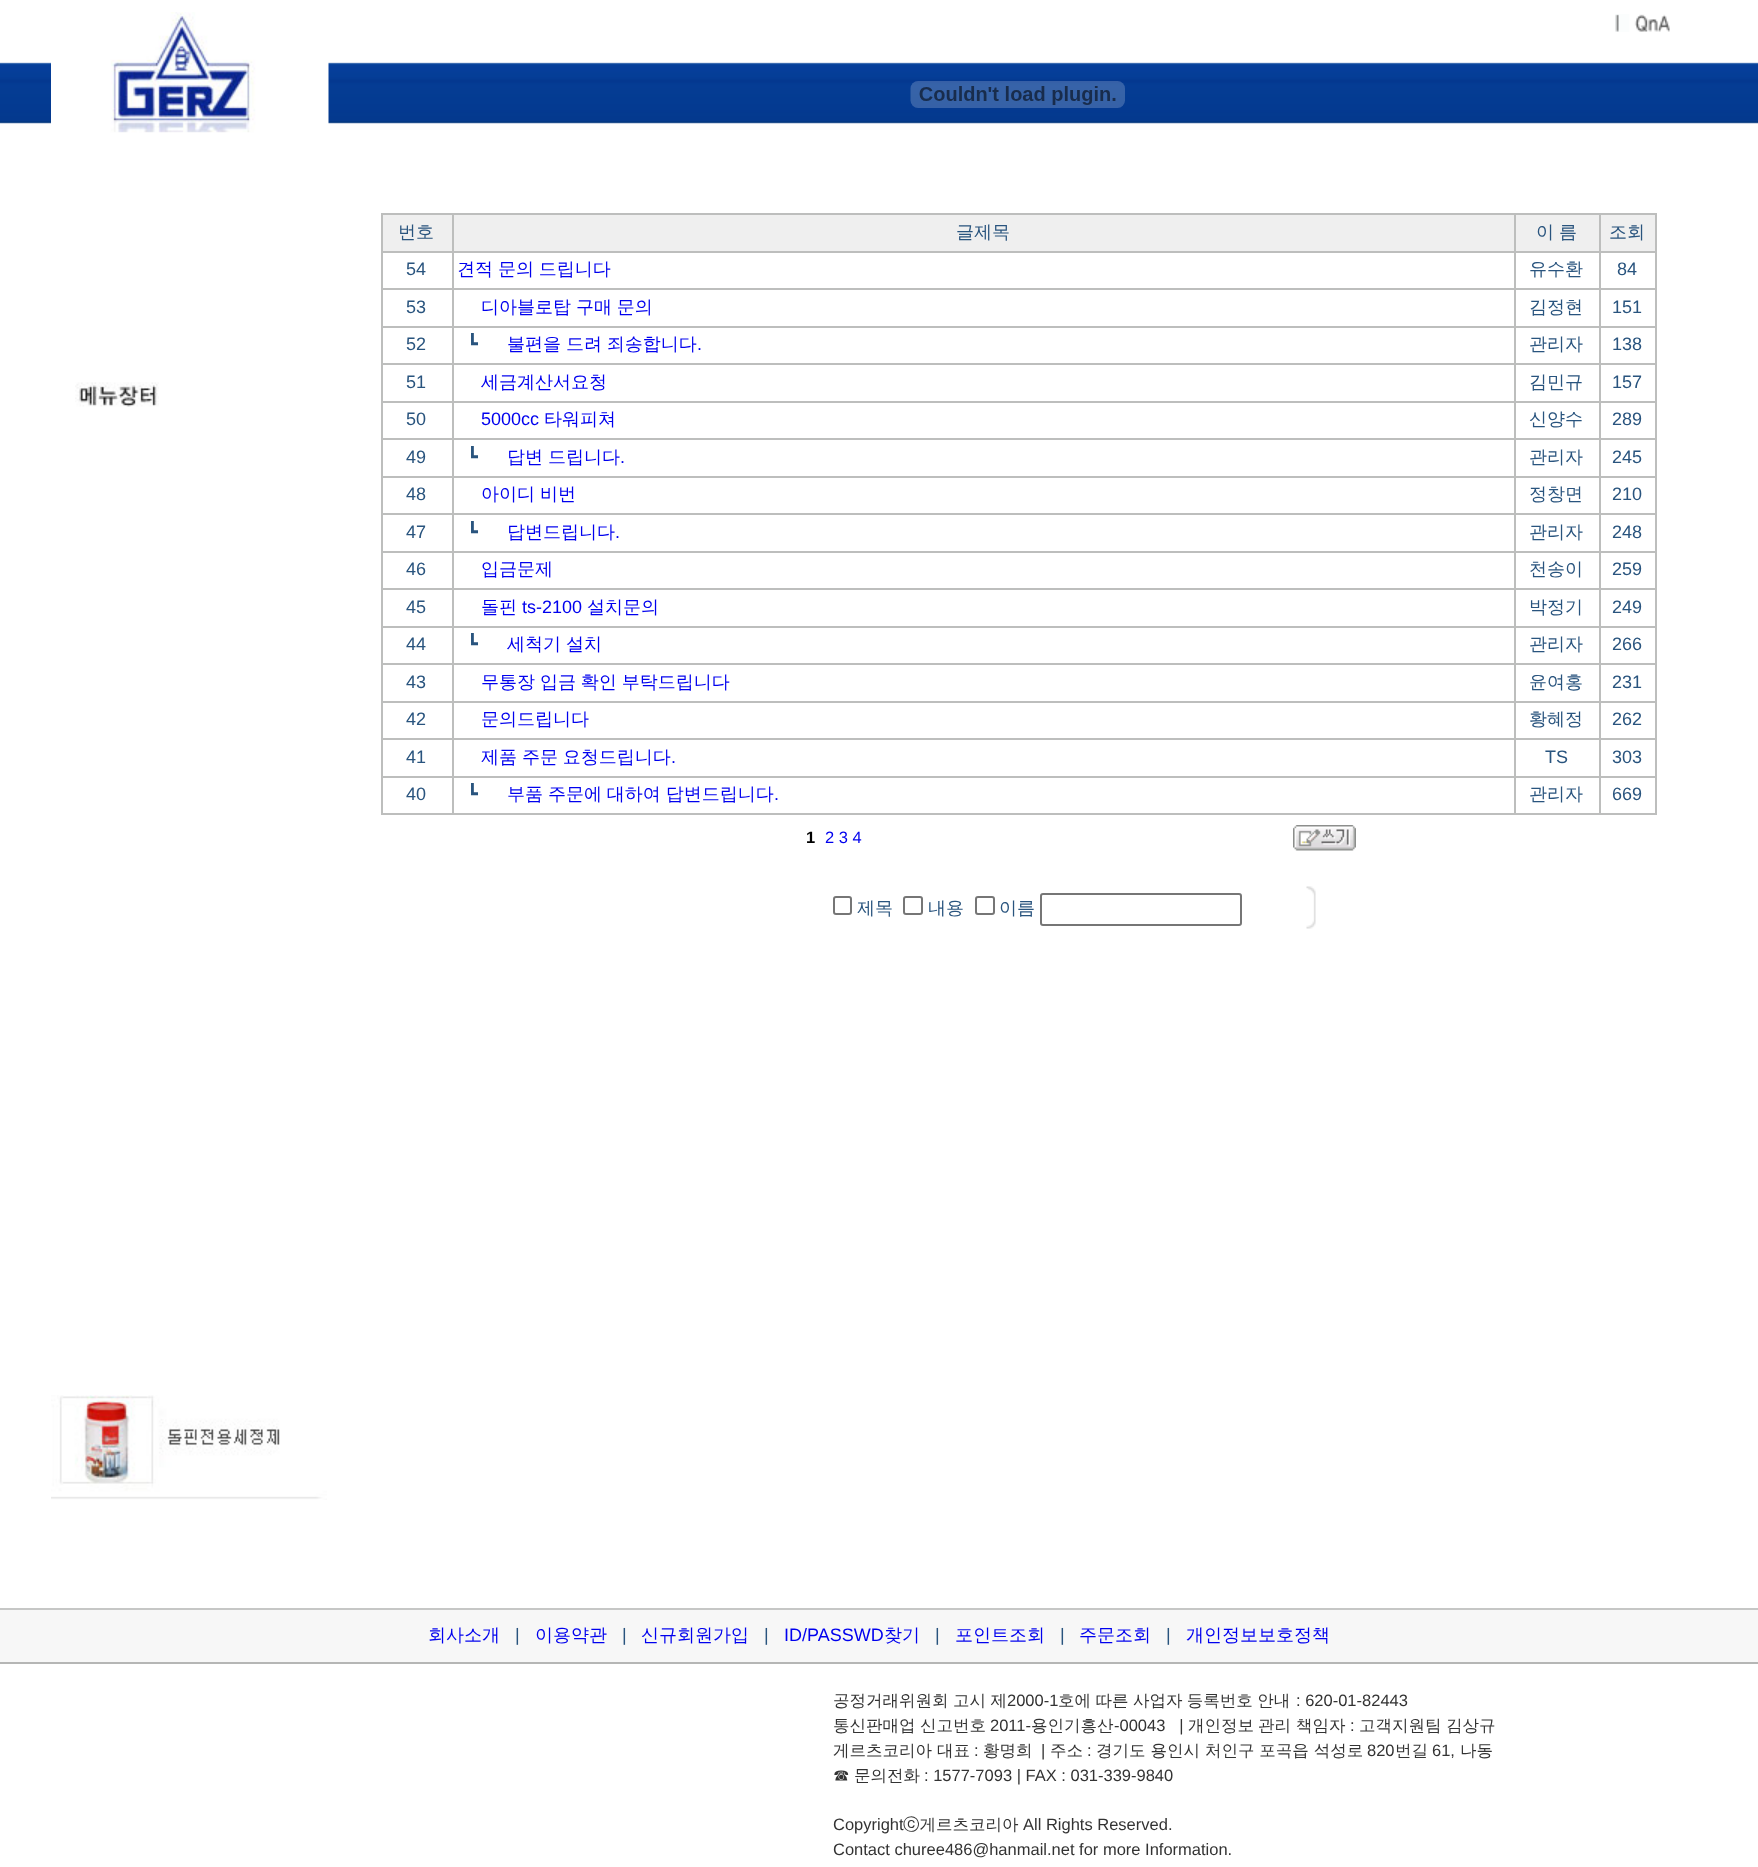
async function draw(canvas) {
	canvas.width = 1758;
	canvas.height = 1867;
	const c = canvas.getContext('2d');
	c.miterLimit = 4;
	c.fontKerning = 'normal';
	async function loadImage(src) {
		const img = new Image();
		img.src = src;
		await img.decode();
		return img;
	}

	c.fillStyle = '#fff';
	c.fillRect(0, 0, 1758, 1867);
	c.drawImage(await loadImage('img1.png'), 0, 62, 1758, 62);
	c.drawImage(await loadImage('img2.png'), 51, 12, 278, 121);
	c.drawImage(await loadImage('img3.png'), 1615, 14, 55, 18);
	c.drawImage(await loadImage('img4.png'), 910, 81, 215, 27);
	c.drawImage(await loadImage('img5.png'), 75, 382, 84, 25);
	c.drawImage(await loadImage('img6.png'), 51, 1395, 276, 105);
	for (const [x, y, w, h, color] of [
		[381, 213, 1275, 2, '#bdbebd'],
		[1655, 213, 2, 602, '#bdbebd'],
		[381, 813, 1275, 2, '#bdbebd'],
		[381, 213, 2, 602, '#bdbebd'],
		[383, 215, 1272, 36, '#efefef'],
	]) {
		c.fillStyle = color;
		c.fillRect(x, y, w, h);
	}
	c.font = '500 18px WenQuanYi Zen Hei';
	c.fillStyle = '#29547e';
	c.fillText('번호', 398, 238);
	for (const [x, y, w, h, color] of [
		[1599, 251, 57, 2, '#bdbebd'],
		[1599, 288, 57, 2, '#bdbebd'],
		[1599, 326, 57, 2, '#bdbebd'],
		[1599, 363, 57, 2, '#bdbebd'],
		[1599, 401, 57, 2, '#bdbebd'],
		[1599, 438, 57, 2, '#bdbebd'],
		[1599, 476, 57, 2, '#bdbebd'],
		[1599, 513, 57, 2, '#bdbebd'],
		[1599, 551, 57, 2, '#bdbebd'],
		[1599, 588, 57, 2, '#bdbebd'],
		[1599, 626, 57, 2, '#bdbebd'],
		[1599, 663, 57, 2, '#bdbebd'],
		[1599, 701, 57, 2, '#bdbebd'],
		[1599, 738, 57, 2, '#bdbebd'],
		[1599, 776, 57, 2, '#bdbebd'],
		[1599, 776, 2, 39, '#bdbebd'],
		[1514, 776, 87, 2, '#bdbebd'],
		[1599, 738, 2, 39, '#bdbebd'],
		[1514, 738, 87, 2, '#bdbebd'],
		[1599, 701, 2, 39, '#bdbebd'],
		[1514, 701, 87, 2, '#bdbebd'],
		[1599, 663, 2, 39, '#bdbebd'],
		[1514, 663, 87, 2, '#bdbebd'],
		[1599, 626, 2, 39, '#bdbebd'],
		[1514, 626, 87, 2, '#bdbebd'],
		[1599, 588, 2, 39, '#bdbebd'],
		[1514, 588, 87, 2, '#bdbebd'],
		[1599, 551, 2, 39, '#bdbebd'],
		[1514, 551, 87, 2, '#bdbebd'],
		[1599, 513, 2, 39, '#bdbebd'],
		[1514, 513, 87, 2, '#bdbebd'],
		[1599, 476, 2, 39, '#bdbebd'],
		[1514, 476, 87, 2, '#bdbebd'],
		[1599, 438, 2, 39, '#bdbebd'],
		[1514, 438, 87, 2, '#bdbebd'],
		[1599, 401, 2, 39, '#bdbebd'],
		[1514, 401, 87, 2, '#bdbebd'],
		[1599, 363, 2, 39, '#bdbebd'],
		[1514, 363, 87, 2, '#bdbebd'],
		[1599, 326, 2, 39, '#bdbebd'],
		[1514, 326, 87, 2, '#bdbebd'],
		[1599, 288, 2, 39, '#bdbebd'],
		[1514, 288, 87, 2, '#bdbebd'],
		[1599, 251, 2, 39, '#bdbebd'],
		[1514, 251, 87, 2, '#bdbebd'],
		[1514, 776, 2, 39, '#bdbebd'],
		[452, 776, 1063, 2, '#bdbebd'],
		[1514, 738, 2, 39, '#bdbebd'],
		[452, 738, 1063, 2, '#bdbebd'],
		[1514, 701, 2, 39, '#bdbebd'],
		[452, 701, 1063, 2, '#bdbebd'],
		[1514, 663, 2, 39, '#bdbebd'],
		[452, 663, 1063, 2, '#bdbebd'],
		[1514, 626, 2, 39, '#bdbebd'],
		[452, 626, 1063, 2, '#bdbebd'],
		[1514, 588, 2, 39, '#bdbebd'],
		[452, 588, 1063, 2, '#bdbebd'],
		[1514, 551, 2, 39, '#bdbebd'],
		[452, 551, 1063, 2, '#bdbebd'],
		[1514, 513, 2, 39, '#bdbebd'],
		[452, 513, 1063, 2, '#bdbebd'],
		[1514, 476, 2, 39, '#bdbebd'],
		[452, 476, 1063, 2, '#bdbebd'],
		[1514, 438, 2, 39, '#bdbebd'],
		[452, 438, 1063, 2, '#bdbebd'],
		[1514, 401, 2, 39, '#bdbebd'],
		[452, 401, 1063, 2, '#bdbebd'],
		[1514, 363, 2, 39, '#bdbebd'],
		[452, 363, 1063, 2, '#bdbebd'],
		[1514, 326, 2, 39, '#bdbebd'],
		[452, 326, 1063, 2, '#bdbebd'],
		[1514, 288, 2, 39, '#bdbebd'],
		[452, 288, 1063, 2, '#bdbebd'],
		[1514, 251, 2, 39, '#bdbebd'],
		[452, 251, 1063, 2, '#bdbebd'],
		[452, 776, 2, 39, '#bdbebd'],
		[381, 776, 72, 2, '#bdbebd'],
		[452, 738, 2, 39, '#bdbebd'],
		[381, 738, 72, 2, '#bdbebd'],
		[452, 701, 2, 39, '#bdbebd'],
		[381, 701, 72, 2, '#bdbebd'],
		[452, 663, 2, 39, '#bdbebd'],
		[381, 663, 72, 2, '#bdbebd'],
		[452, 626, 2, 39, '#bdbebd'],
		[381, 626, 72, 2, '#bdbebd'],
		[452, 588, 2, 39, '#bdbebd'],
		[381, 588, 72, 2, '#bdbebd'],
		[452, 551, 2, 39, '#bdbebd'],
		[381, 551, 72, 2, '#bdbebd'],
		[452, 513, 2, 39, '#bdbebd'],
		[381, 513, 72, 2, '#bdbebd'],
		[452, 476, 2, 39, '#bdbebd'],
		[381, 476, 72, 2, '#bdbebd'],
		[452, 438, 2, 39, '#bdbebd'],
		[381, 438, 72, 2, '#bdbebd'],
		[452, 401, 2, 39, '#bdbebd'],
		[381, 401, 72, 2, '#bdbebd'],
		[452, 363, 2, 39, '#bdbebd'],
		[381, 363, 72, 2, '#bdbebd'],
		[452, 326, 2, 39, '#bdbebd'],
		[381, 326, 72, 2, '#bdbebd'],
		[452, 288, 2, 39, '#bdbebd'],
		[381, 288, 72, 2, '#bdbebd'],
		[452, 251, 2, 39, '#bdbebd'],
		[381, 251, 72, 2, '#bdbebd'],
		[452, 213, 2, 39, '#bdbebd'],
	]) {
		c.fillStyle = color;
		c.fillRect(x, y, w, h);
	}
	c.fillStyle = '#29547e';
	c.fillText('글제목', 956, 238);
	c.fillStyle = '#bdbebd';
	c.fillRect(1514, 213, 2, 39);
	c.wordSpacing = '-0.5px';
	c.fillStyle = '#29547e';
	c.fillText('이 름', 1536, 238);
	c.fillStyle = '#bdbebd';
	c.fillRect(1599, 213, 2, 39);
	c.wordSpacing = '0px';
	c.fillStyle = '#29547e';
	c.fillText('조회', 1609, 238);
	c.font = '18px Liberation Sans';
	c.fillText('54', 406, 275);
	c.wordSpacing = '-0.5px';
	c.font = '500 18px WenQuanYi Zen Hei';
	c.fillStyle = '#00e';
	c.fillText('견적 문의 드립니다', 457, 275);
	c.wordSpacing = '0px';
	c.fillStyle = '#29547e';
	c.fillText('유수환', 1529, 275);
	c.font = '18px Liberation Sans';
	c.fillText('84', 1617, 275);
	c.fillText('53', 406, 313);
	c.wordSpacing = '-0.5px';
	c.font = '500 18px WenQuanYi Zen Hei';
	c.fillStyle = '#00e';
	c.fillText('디아블로탑 구매 문의', 481, 313);
	c.wordSpacing = '0px';
	c.fillStyle = '#29547e';
	c.fillText('김정현', 1529, 313);
	c.font = '18px Liberation Sans';
	c.fillText('151', 1612, 313);
	c.fillText('52', 406, 350);
	c.font = '18px DejaVu Sans';
	c.fillText('┗', 467, 350);
	c.wordSpacing = '-0.5px';
	c.font = '500 18px WenQuanYi Zen Hei';
	c.fillStyle = '#00e';
	c.fillText('불편을 드려 죄송합니다', 507, 350);
	c.wordSpacing = '0px';
	c.font = '18px Liberation Sans';
	c.fillText('.', 697, 350);
	c.font = '500 18px WenQuanYi Zen Hei';
	c.fillStyle = '#29547e';
	c.fillText('관리자', 1529, 350);
	c.font = '18px Liberation Sans';
	c.fillText('138', 1612, 350);
	c.fillText('51', 406, 388);
	c.font = '500 18px WenQuanYi Zen Hei';
	c.fillStyle = '#00e';
	c.fillText('세금계산서요청', 481, 388);
	c.fillStyle = '#29547e';
	c.fillText('김민규', 1529, 388);
	c.font = '18px Liberation Sans';
	c.fillText('157', 1612, 388);
	c.fillText('50', 406, 425);
	c.fillStyle = '#00e';
	c.fillText('5000cc', 481, 425);
	c.font = '500 18px WenQuanYi Zen Hei';
	c.fillText('타워피쳐', 544, 425);
	c.fillStyle = '#29547e';
	c.fillText('신양수', 1529, 425);
	c.font = '18px Liberation Sans';
	c.fillText('289', 1612, 425);
	c.fillText('49', 406, 463);
	c.font = '18px DejaVu Sans';
	c.fillText('┗', 467, 463);
	c.wordSpacing = '-0.5px';
	c.font = '500 18px WenQuanYi Zen Hei';
	c.fillStyle = '#00e';
	c.fillText('답변 드립니다', 507, 463);
	c.wordSpacing = '0px';
	c.font = '18px Liberation Sans';
	c.fillText('.', 620, 463);
	c.font = '500 18px WenQuanYi Zen Hei';
	c.fillStyle = '#29547e';
	c.fillText('관리자', 1529, 463);
	c.font = '18px Liberation Sans';
	c.fillText('245', 1612, 463);
	c.fillText('48', 406, 500);
	c.wordSpacing = '-0.5px';
	c.font = '500 18px WenQuanYi Zen Hei';
	c.fillStyle = '#00e';
	c.fillText('아이디 비번', 481, 500);
	c.wordSpacing = '0px';
	c.fillStyle = '#29547e';
	c.fillText('정창면', 1529, 500);
	c.font = '18px Liberation Sans';
	c.fillText('210', 1612, 500);
	c.fillText('47', 406, 538);
	c.font = '18px DejaVu Sans';
	c.fillText('┗', 467, 538);
	c.font = '500 18px WenQuanYi Zen Hei';
	c.fillStyle = '#00e';
	c.fillText('답변드립니다', 507, 538);
	c.font = '18px Liberation Sans';
	c.fillText('.', 615, 538);
	c.font = '500 18px WenQuanYi Zen Hei';
	c.fillStyle = '#29547e';
	c.fillText('관리자', 1529, 538);
	c.font = '18px Liberation Sans';
	c.fillText('248', 1612, 538);
	c.fillText('46', 406, 575);
	c.font = '500 18px WenQuanYi Zen Hei';
	c.fillStyle = '#00e';
	c.fillText('입금문제', 481, 575);
	c.fillStyle = '#29547e';
	c.fillText('천송이', 1529, 575);
	c.font = '18px Liberation Sans';
	c.fillText('259', 1612, 575);
	c.fillText('45', 406, 613);
	c.font = '500 18px WenQuanYi Zen Hei';
	c.fillStyle = '#00e';
	c.fillText('돌핀', 481, 613);
	c.font = '18px Liberation Sans';
	c.fillText('ts-2100', 522, 613);
	c.font = '500 18px WenQuanYi Zen Hei';
	c.fillText('설치문의', 587, 613);
	c.fillStyle = '#29547e';
	c.fillText('박정기', 1529, 613);
	c.font = '18px Liberation Sans';
	c.fillText('249', 1612, 613);
	c.fillText('44', 406, 650);
	c.font = '18px DejaVu Sans';
	c.fillText('┗', 467, 650);
	c.wordSpacing = '-0.5px';
	c.font = '500 18px WenQuanYi Zen Hei';
	c.fillStyle = '#00e';
	c.fillText('세척기 설치', 507, 650);
	c.wordSpacing = '0px';
	c.fillStyle = '#29547e';
	c.fillText('관리자', 1529, 650);
	c.font = '18px Liberation Sans';
	c.fillText('266', 1612, 650);
	c.fillText('43', 406, 688);
	c.wordSpacing = '-0.5px';
	c.font = '500 18px WenQuanYi Zen Hei';
	c.fillStyle = '#00e';
	c.fillText('무통장 입금 확인 부탁드립니다', 481, 688);
	c.wordSpacing = '0px';
	c.fillStyle = '#29547e';
	c.fillText('윤여홍', 1529, 688);
	c.font = '18px Liberation Sans';
	c.fillText('231', 1612, 688);
	c.fillText('42', 406, 725);
	c.font = '500 18px WenQuanYi Zen Hei';
	c.fillStyle = '#00e';
	c.fillText('문의드립니다', 481, 725);
	c.fillStyle = '#29547e';
	c.fillText('황혜정', 1529, 725);
	c.font = '18px Liberation Sans';
	c.fillText('262', 1612, 725);
	c.fillText('41', 406, 763);
	c.wordSpacing = '-0.5px';
	c.font = '500 18px WenQuanYi Zen Hei';
	c.fillStyle = '#00e';
	c.fillText('제품 주문 요청드립니다', 481, 763);
	c.wordSpacing = '0px';
	c.font = '18px Liberation Sans';
	c.fillText('.', 671, 763);
	c.fillStyle = '#29547e';
	for (const [text, x, y] of [
		['TS', 1545, 763],
		['303', 1612, 763],
		['40', 406, 800],
	]) {
		c.fillText(text, x, y);
	}
	c.font = '18px DejaVu Sans';
	c.fillText('┗', 467, 800);
	c.wordSpacing = '-0.5px';
	c.font = '500 18px WenQuanYi Zen Hei';
	c.fillStyle = '#00e';
	c.fillText('부품 주문에 대하여 답변드립니다', 507, 800);
	c.wordSpacing = '0px';
	c.font = '18px Liberation Sans';
	c.fillText('.', 774, 800);
	c.font = '500 18px WenQuanYi Zen Hei';
	c.fillStyle = '#29547e';
	c.fillText('관리자', 1529, 800);
	c.font = '18px Liberation Sans';
	c.fillText('669', 1612, 800);
	c.font = 'bold 16.5px Liberation Sans';
	c.fillStyle = '#000';
	c.fillText('1', 806, 843);
	c.font = '16.5px Liberation Sans';
	c.fillStyle = '#00e';
	c.fillText('2 3 4', 825, 843);
	c.drawImage(await loadImage('img7.png'), 1293, 825, 63, 26);
	c.beginPath();
	c.roundRect(834, 897, 17, 17, 2);
	c.strokeStyle = '#767676';
	c.lineWidth = 2;
	c.stroke();
	c.font = '500 18px WenQuanYi Zen Hei';
	c.fillStyle = '#29547e';
	c.fillText('제목', 857, 914);
	c.beginPath();
	c.roundRect(904, 897, 18, 17, 2);
	c.stroke();
	c.fillText('내용', 928, 914);
	c.beginPath();
	c.roundRect(976, 897, 18, 17, 2);
	c.stroke();
	c.fillText('이름', 999, 914);
	c.beginPath();
	c.roundRect(1041, 894, 200, 31, 2);
	c.stroke();
	c.drawImage(await loadImage('img8.png'), 1306, 886, 10, 43);
	c.fillStyle = '#c6c7c6';
	c.fillRect(0, 1608, 1758, 2);
	c.fillStyle = '#f7f7f7';
	c.fillRect(0, 1610, 1758, 52);
	c.fillStyle = '#00e';
	c.fillText('회사소개', 428, 1641);
	c.font = '18px Liberation Sans';
	c.fillStyle = '#29547e';
	c.fillText('|', 515, 1641);
	c.font = '500 18px WenQuanYi Zen Hei';
	c.fillStyle = '#00e';
	c.fillText('이용약관', 535, 1641);
	c.font = '18px Liberation Sans';
	c.fillStyle = '#29547e';
	c.fillText('|', 622, 1641);
	c.font = '500 18px WenQuanYi Zen Hei';
	c.fillStyle = '#00e';
	c.fillText('신규회원가입', 641, 1641);
	c.font = '18px Liberation Sans';
	c.fillStyle = '#29547e';
	c.fillText('|', 764, 1641);
	c.fillStyle = '#00e';
	c.fillText('ID/PASSWD', 784, 1641);
	c.font = '500 18px WenQuanYi Zen Hei';
	c.fillText('찾기', 884, 1641);
	c.font = '18px Liberation Sans';
	c.fillStyle = '#29547e';
	c.fillText('|', 935, 1641);
	c.font = '500 18px WenQuanYi Zen Hei';
	c.fillStyle = '#00e';
	c.fillText('포인트조회', 955, 1641);
	c.font = '18px Liberation Sans';
	c.fillStyle = '#29547e';
	c.fillText('|', 1060, 1641);
	c.font = '500 18px WenQuanYi Zen Hei';
	c.fillStyle = '#00e';
	c.fillText('주문조회', 1079, 1641);
	c.font = '18px Liberation Sans';
	c.fillStyle = '#29547e';
	c.fillText('|', 1166, 1641);
	c.font = '500 18px WenQuanYi Zen Hei';
	c.fillStyle = '#00e';
	c.fillText('개인정보보호정책', 1186, 1641);
	c.fillStyle = '#b5b6b5';
	c.fillRect(0, 1662, 1758, 2);
	c.wordSpacing = '-0.5px';
	c.font = '500 16.5px WenQuanYi Zen Hei';
	c.fillStyle = '#333';
	c.fillText('공정거래위원회 고시 제', 833, 1706);
	c.wordSpacing = '0px';
	c.font = '16.5px Liberation Sans';
	c.fillText('2000-1', 1007, 1706);
	c.wordSpacing = '-0.5px';
	c.font = '500 16.5px WenQuanYi Zen Hei';
	c.fillText('호에 따른 사업자 등록번호 안내', 1058, 1706);
	c.wordSpacing = '0px';
	c.font = '16.5px Liberation Sans';
	c.fillText(': 620-01-82443', 1296, 1706);
	c.font = '500 16.5px WenQuanYi Zen Hei';
	c.fillText('통신판매업', 833, 1731);
	c.fillText('신고번호', 920, 1731);
	c.font = '16.5px Liberation Sans';
	c.fillText('2011-', 990, 1731);
	c.font = '500 16.5px WenQuanYi Zen Hei';
	c.fillText('용인기흥산', 1031, 1731);
	c.font = '16.5px Liberation Sans';
	c.fillText('-00043   |', 1114, 1731);
	c.font = '500 16.5px WenQuanYi Zen Hei';
	for (const [text, x, y] of [
		['개인정보', 1188, 1731],
		['관리', 1258, 1731],
		['책임자', 1296, 1731],
	]) {
		c.fillText(text, x, y);
	}
	c.font = '16.5px Liberation Sans';
	c.fillText(':', 1350, 1731);
	c.font = '500 16.5px WenQuanYi Zen Hei';
	for (const [text, x, y] of [
		['고객지원팀', 1359, 1731],
		['김상규', 1446, 1731],
		['게르츠코리아 대표', 833, 1756],
	]) {
		c.fillText(text, x, y);
	}
	c.font = '16.5px Liberation Sans';
	c.fillText(':', 974, 1756);
	c.font = '500 16.5px WenQuanYi Zen Hei';
	c.fillText('황명희', 983, 1756);
	c.font = '16.5px Liberation Sans';
	c.fillText('|', 1041, 1756);
	c.font = '500 16.5px WenQuanYi Zen Hei';
	c.fillText('주소', 1050, 1756);
	c.font = '16.5px Liberation Sans';
	c.fillText(':', 1087, 1756);
	c.font = '500 16.5px WenQuanYi Zen Hei';
	c.fillText('경기도 용인시 처인구 포곡읍 석성로', 1096, 1756);
	c.font = '16.5px Liberation Sans';
	c.fillText('820', 1367, 1756);
	c.font = '500 16.5px WenQuanYi Zen Hei';
	c.fillText('번길', 1395, 1756);
	c.font = '16.5px Liberation Sans';
	c.fillText('61,', 1432, 1756);
	c.font = '500 16.5px WenQuanYi Zen Hei';
	for (const [text, x, y] of [
		['나동', 1460, 1756],
		['☎', 833, 1781],
		['문의전화', 854, 1781],
	]) {
		c.fillText(text, x, y);
	}
	c.font = '16.5px Liberation Sans';
	c.fillText(': 1577-7093 | FAX : 031-339-9840', 924, 1781);
	c.fillText('Copyright', 833, 1830);
	c.font = '500 16.5px WenQuanYi Zen Hei';
	c.fillText('ⓒ게르츠코리아', 903, 1830);
	c.font = '16.5px Liberation Sans';
	c.fillText('All Rights Reserved.', 1023, 1830);
	c.fillText('Contact churee486@hanmail.net for more Information.', 833, 1855);
}

draw(document.querySelector('canvas'));
